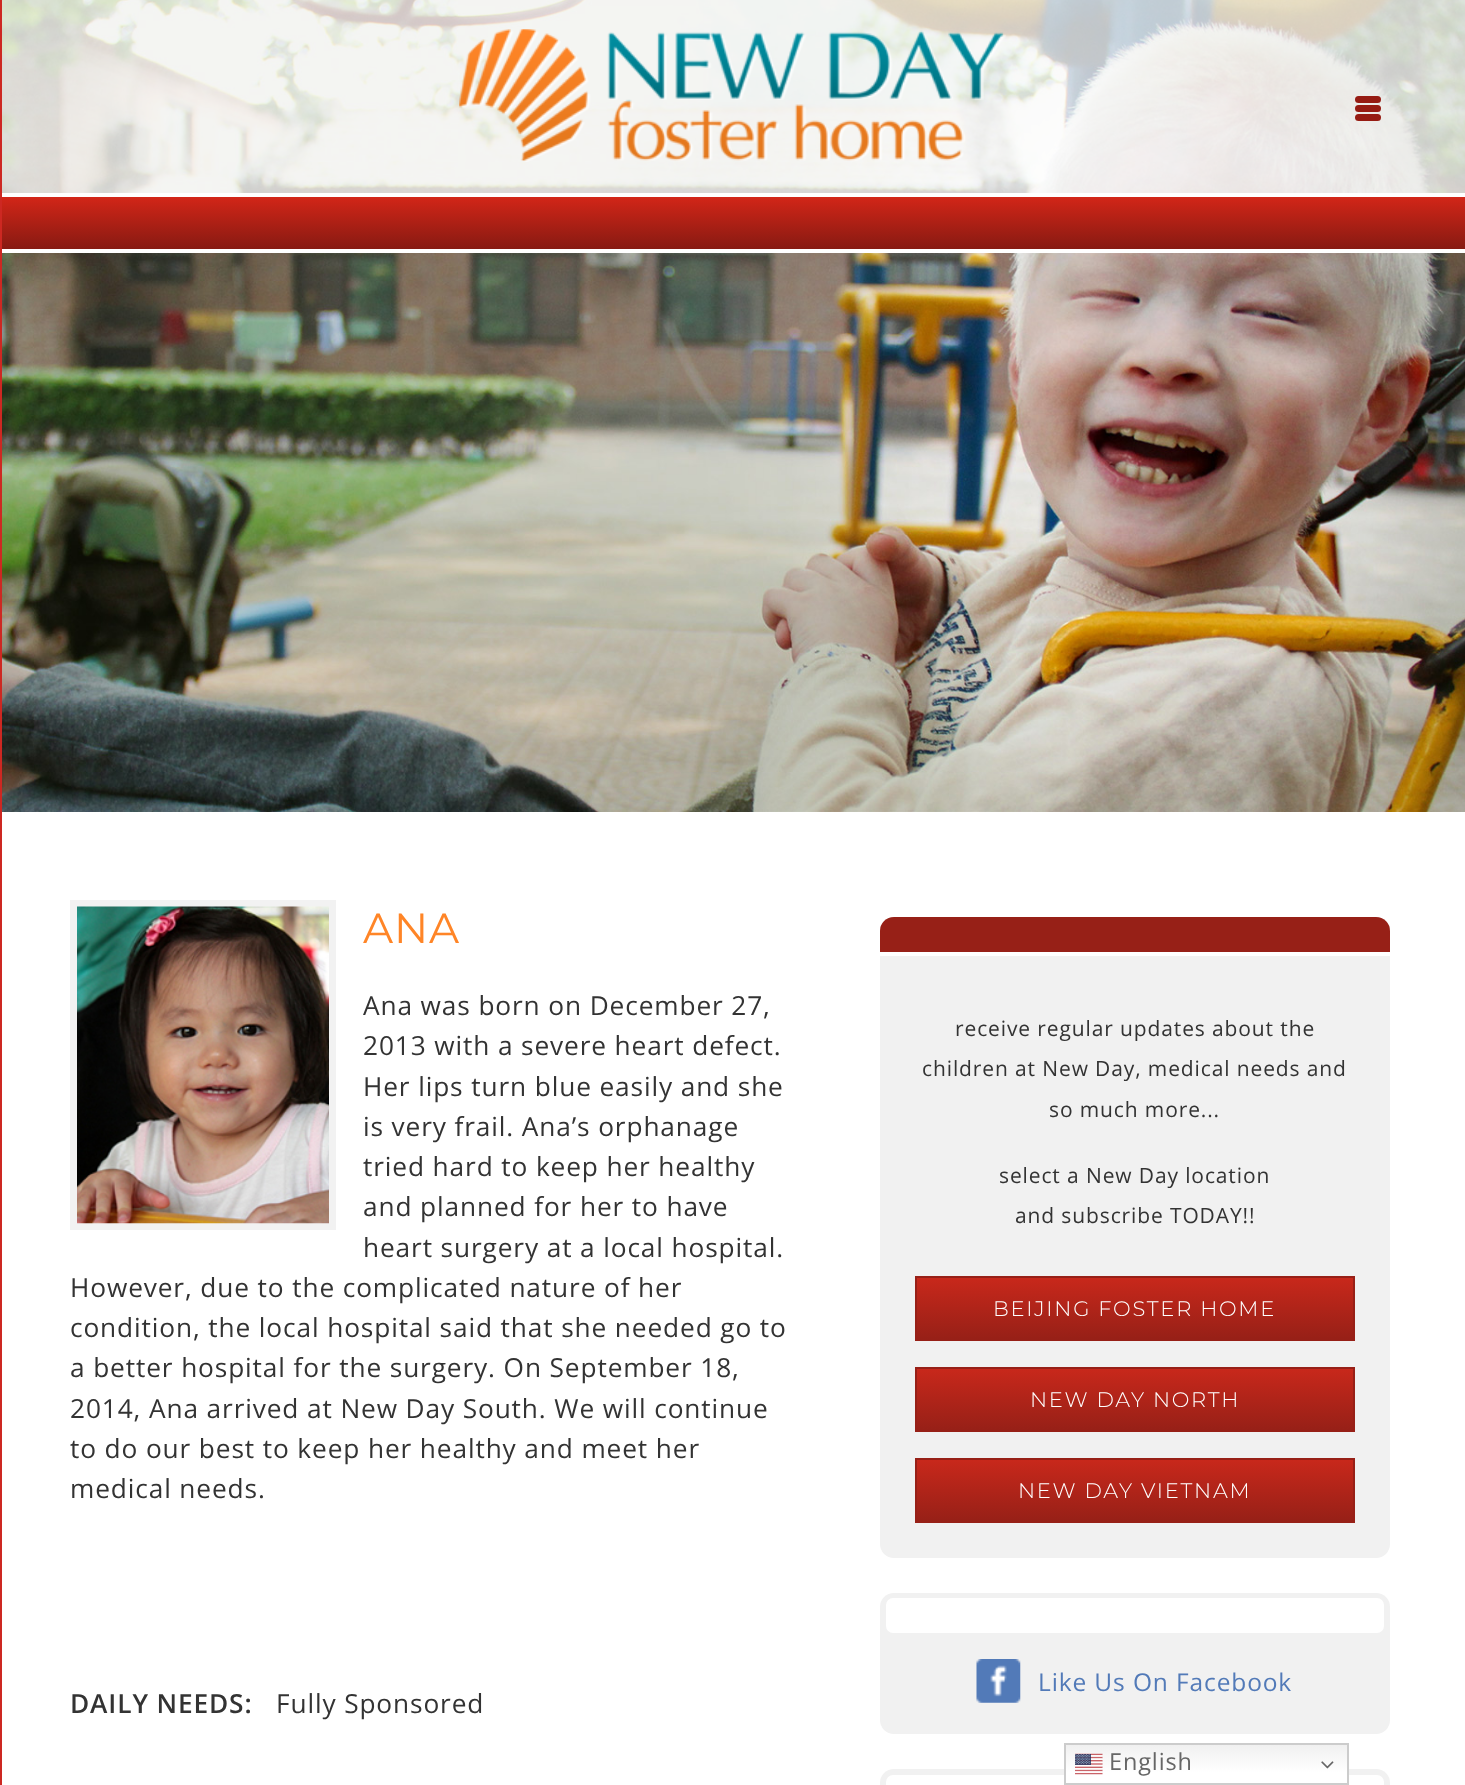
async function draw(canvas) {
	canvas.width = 1465;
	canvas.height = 1785;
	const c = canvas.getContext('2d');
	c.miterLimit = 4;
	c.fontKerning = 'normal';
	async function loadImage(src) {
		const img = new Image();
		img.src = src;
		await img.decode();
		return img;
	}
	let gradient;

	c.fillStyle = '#fff';
	c.fillRect(0, 0, 1465, 1785);
	c.drawImage(await loadImage('img2.png'), 2, 0, 1463, 812);
	c.fillStyle = '#ffffffbf';
	c.fillRect(2, 0, 1463, 193);
	c.drawImage(await loadImage('img1.png'), 459, 29, 547, 133);
	gradient = c.createLinearGradient(733, 196, 733, 249);
	gradient.addColorStop(0, '#d42618');
	gradient.addColorStop(1, '#871a12');
	c.fillStyle = gradient;
	c.fillRect(2, 197, 1463, 52);
	for (const [x, y, w, h, color] of [
		[0, 193, 1465, 4, '#fff'],
		[0, 249, 1465, 4, '#fff'],
		[0, 0, 2, 1785, '#cd2822'],
	]) {
		c.fillStyle = color;
		c.fillRect(x, y, w, h);
	}
	c.fillStyle = '#961c13';
	c.beginPath();
	c.roundRect(1355, 105, 26, 7, 3.5);
	c.fill();
	c.beginPath();
	c.roundRect(1355, 96, 26, 7, 3.5);
	c.fill();
	c.beginPath();
	c.roundRect(1355, 114, 26, 7, 3.5);
	c.fill();
	c.strokeStyle = '#f2f2f2';
	c.lineWidth = 7;
	c.strokeRect(73.5, 903.5, 259, 323);
	c.drawImage(await loadImage('img3.png'), 77, 906, 252, 318);
	c.letterSpacing = '0.88px';
	c.font = '42px Montserrat';
	c.fillStyle = '#ff8527';
	c.fillText('ANA', 363, 943);
	c.font = '26.25px Open Sans';
	c.fillStyle = '#333';
	for (const [text, x, y] of [
		['Ana was born on December 27,', 363, 1015],
		['2013 with a severe heart defect.', 363, 1055],
		['Her lips turn blue easily and she', 363, 1096],
		['is very frail. Ana’s orphanage', 363, 1136],
		['tried hard to keep her healthy', 363, 1176],
		['and planned for her to have', 363, 1216],
		['heart surgery at a local hospital.', 363, 1257],
		['However, due to the complicated nature of her', 70, 1297],
		['condition, the local hospital said that she needed go to', 70, 1337],
		['a better hospital for the surgery. On September 18,', 70, 1377],
		['2014, Ana arrived at New Day South. We will continue', 70, 1418],
		['to do our best to keep her healthy and meet her', 70, 1458],
		['medical needs.', 70, 1498],
	]) {
		c.fillText(text, x, y);
	}
	c.font = '600 26.25px Open Sans';
	c.fillText('DAILY NEEDS:', 70, 1713);
	c.font = '26.25px Open Sans';
	c.fillText('Fully Sponsored', 276, 1713);
	c.fillStyle = '#f1f1f1';
	c.beginPath();
	c.roundRect(880, 917, 510, 641, 14);
	c.fill();
	c.fillStyle = '#972017';
	c.beginPath();
	c.roundRect(880, 917, 510, 39, [14, 14, 0, 0]);
	c.fill();
	c.fillStyle = '#fff';
	c.fillRect(880, 952, 510, 4);
	c.font = '21px Open Sans';
	c.fillStyle = '#333';
	for (const [text, x, y] of [
		['receive regular updates about the', 955, 1036],
		['children at New Day, medical needs and', 922, 1076],
		['so much more...', 1049, 1117],
		['select a New Day location', 999, 1183],
		['and subscribe TODAY!!', 1015, 1223],
	]) {
		c.fillText(text, x, y);
	}
	gradient = c.createLinearGradient(1135, 1278, 1135, 1339);
	gradient.addColorStop(0, '#c8281b');
	gradient.addColorStop(1, '#972017');
	c.fillStyle = gradient;
	c.fillRect(917, 1278, 436, 61);
	c.strokeStyle = '#972017';
	c.lineWidth = 2;
	c.strokeRect(916, 1277, 438, 63);
	c.letterSpacing = '1.75px';
	c.font = '300 21px Montserrat';
	c.fillStyle = '#fff';
	c.fillText('BEIJING FOSTER HOME', 993, 1316);
	gradient = c.createLinearGradient(1135, 1369, 1135, 1430);
	gradient.addColorStop(0, '#c8281b');
	gradient.addColorStop(1, '#972017');
	c.fillStyle = gradient;
	c.fillRect(917, 1369, 436, 61);
	c.strokeRect(916, 1368, 438, 63);
	c.fillStyle = '#fff';
	c.fillText('NEW DAY NORTH', 1030, 1407);
	gradient = c.createLinearGradient(1135, 1460, 1135, 1521);
	gradient.addColorStop(0, '#c8281b');
	gradient.addColorStop(1, '#972017');
	c.fillStyle = gradient;
	c.fillRect(917, 1460, 436, 61);
	c.strokeRect(916, 1459, 438, 63);
	c.fillStyle = '#fff';
	c.fillText('NEW DAY VIETNAM', 1018, 1498);
	c.fillStyle = '#f1f1f1';
	c.beginPath();
	c.roundRect(880, 1593, 510, 141, 14);
	c.fill();
	c.fillStyle = '#fff';
	c.beginPath();
	c.roundRect(886, 1598, 498, 35, 7);
	c.fill();
	c.drawImage(await loadImage('img4.png'), 976, 1659, 45, 44);
	c.letterSpacing = '0.88px';
	c.font = '24.5px Open Sans';
	c.fillStyle = '#527ab8';
	c.fillText('Like Us On Facebook', 1038, 1691);
	c.fillStyle = '#f1f1f1';
	c.beginPath();
	c.roundRect(880, 1769, 510, 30, 14);
	c.fill();
	c.fillStyle = '#fff';
	c.beginPath();
	c.roundRect(886, 1775, 498, 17, 7);
	c.fill();
	gradient = c.createLinearGradient(1207, 1743, 1207, 1785);
	gradient.addColorStop(0, '#efefef');
	gradient.addColorStop(0.7, '#fff');
	c.fillStyle = gradient;
	c.fillRect(1066, 1745, 281, 30);
	c.strokeStyle = '#ccc';
	c.strokeRect(1065, 1744, 283, 40);
	c.drawImage(await loadImage('img5.png'), 1075, 1753, 28, 22);
	c.font = '23.5px Open Sans';
	c.fillStyle = '#666';
	c.fillText('English', 1109, 1770);
	c.drawImage(await loadImage('img6.png'), 1321, 1761, 13, 8);
}

draw(document.querySelector('canvas'));
